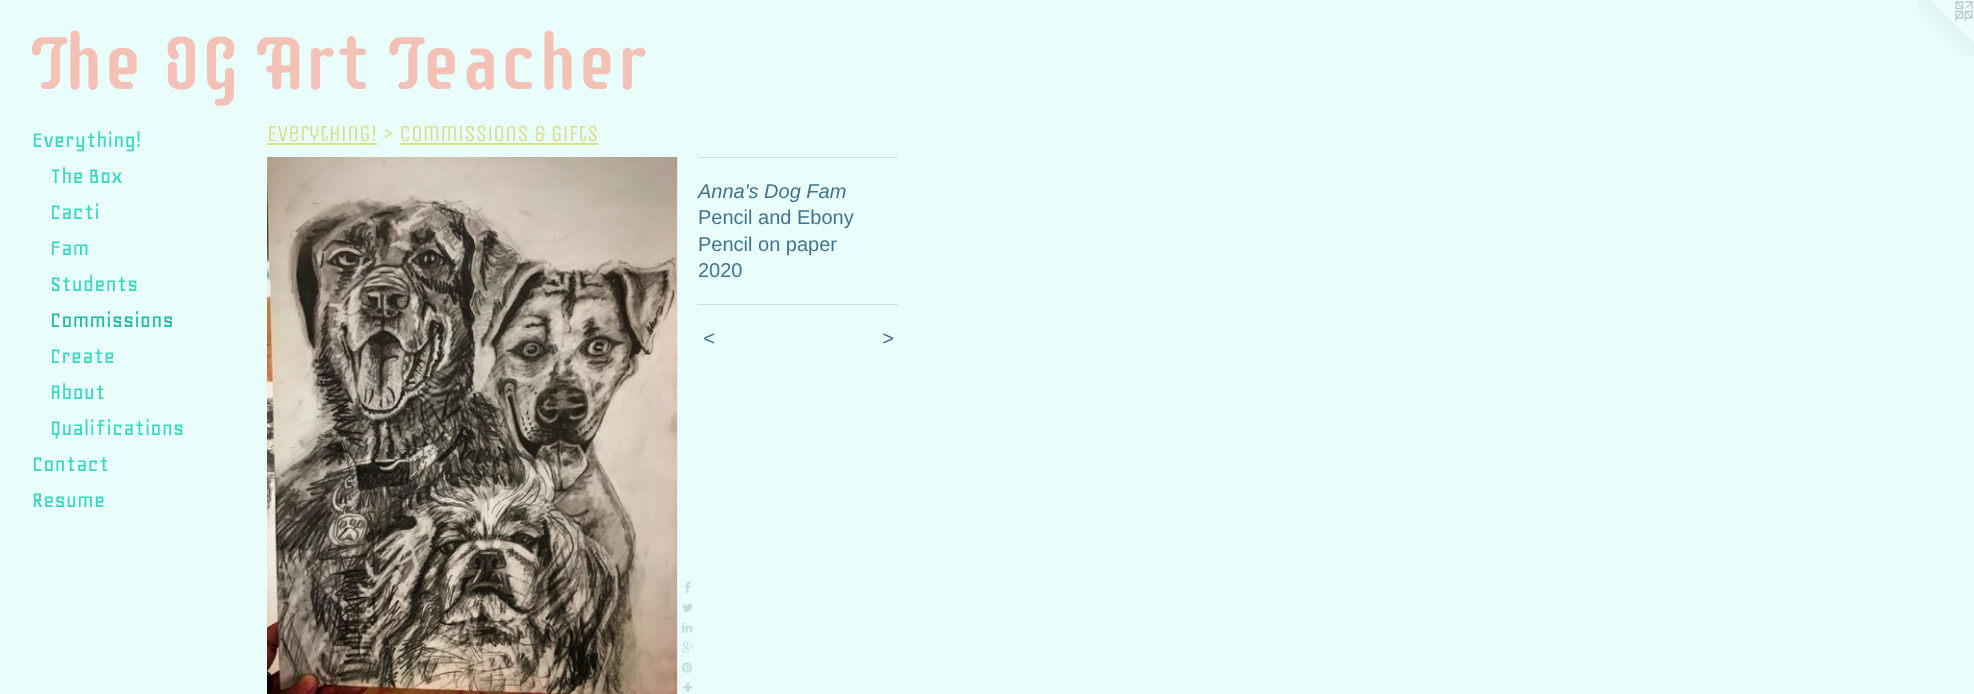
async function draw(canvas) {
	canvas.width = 1974;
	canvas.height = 694;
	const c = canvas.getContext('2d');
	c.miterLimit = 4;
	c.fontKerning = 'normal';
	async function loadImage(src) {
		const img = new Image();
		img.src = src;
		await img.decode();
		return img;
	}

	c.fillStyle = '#e9fefb';
	c.fillRect(0, 0, 1974, 694);
	c.font = '78px Supermercado';
	c.fillStyle = '#f3c1b5';
	c.fillText('The OG Art Teacher', 32, 89);
	c.drawImage(await loadImage('img1.png'), 1918, 0, 56, 56);
	c.font = '24px Geo';
	c.fillStyle = '#3bd7c3';
	for (const [text, x, y] of [
		['Everything!', 32, 147],
		['The Box', 50, 183],
		['Cacti', 50, 219],
		['Fam', 50, 255],
		['Students', 50, 291],
	]) {
		c.fillText(text, x, y);
	}
	c.fillStyle = '#26b9a6';
	c.fillText('Commissions', 50, 327);
	c.fillStyle = '#3bd7c3';
	for (const [text, x, y] of [
		['Create', 50, 363],
		['About', 50, 399],
		['Qualifications', 50, 435],
		['Contact', 32, 471],
		['Resume', 32, 507],
	]) {
		c.fillText(text, x, y);
	}
	c.font = '23px Unica One';
	c.fillStyle = '#d7df8b';
	c.fillText('Everything! > Commissions & Gifts', 267, 141);
	c.fillRect(267, 143, 110, 2);
	c.fillRect(400, 143, 198, 2);
	c.drawImage(await loadImage('img2.png'), 267, 157, 411, 537);
	c.drawImage(await loadImage('img3.png'), 684, 581, 7, 12);
	c.drawImage(await loadImage('img4.png'), 682, 603, 11, 9);
	c.drawImage(await loadImage('img5.png'), 682, 622, 11, 11);
	c.drawImage(await loadImage('img6.png'), 682, 641, 11, 12);
	c.drawImage(await loadImage('img7.png'), 682, 662, 11, 11);
	c.drawImage(await loadImage('img8.png'), 683, 682, 10, 10);
	c.fillStyle = '#c7e2e5';
	c.fillRect(698, 157, 200, 1);
	c.font = 'italic 20px Liberation Sans';
	c.fillStyle = '#3f738e';
	c.fillText('Anna\'s Dog Fam', 698, 198);
	c.font = '20px Liberation Sans';
	for (const [text, x, y] of [
		['Pencil and Ebony', 698, 224],
		['Pencil on paper', 698, 251],
		['2020', 698, 277],
	]) {
		c.fillText(text, x, y);
	}
	c.fillStyle = '#c7e2e5';
	c.fillRect(698, 304, 200, 1);
	c.letterSpacing = '1px';
	c.font = 'italic 20px Liberation Sans';
	c.fillStyle = '#3f738e';
	c.fillText('<', 703, 345);
	c.fillText('>', 882, 345);
}

draw(document.querySelector('canvas'));
